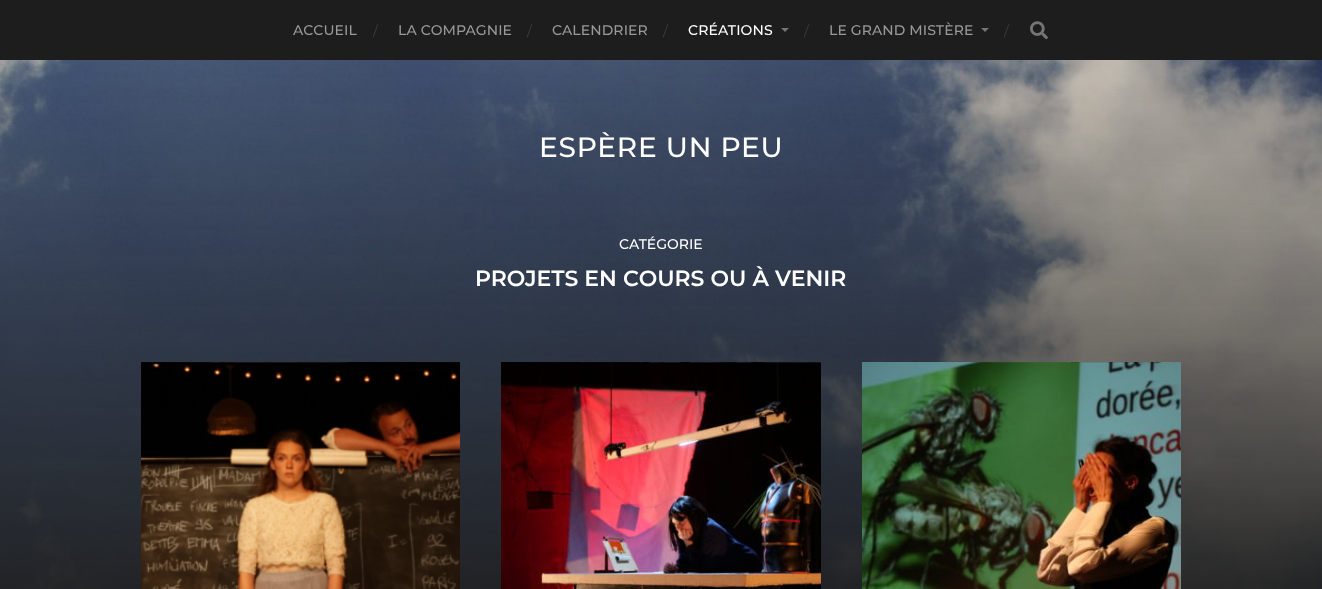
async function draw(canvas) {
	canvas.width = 1322;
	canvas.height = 589;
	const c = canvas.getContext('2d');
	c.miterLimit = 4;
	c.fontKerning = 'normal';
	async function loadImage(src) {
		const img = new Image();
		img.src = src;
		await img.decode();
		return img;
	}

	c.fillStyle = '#1d1d1d';
	c.fillRect(0, 0, 1322, 589);
	c.letterSpacing = '0.1px';
	c.font = '100 14px Montserrat';
	c.fillStyle = '#999';
	c.fillText('ACCUEIL', 293, 35);
	c.letterSpacing = '0px';
	c.font = '100 14px "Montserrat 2"';
	c.fillStyle = '#3d3d3d';
	c.fillText('/', 373, 36);
	c.letterSpacing = '0.1px';
	c.font = '100 14px Montserrat';
	c.fillStyle = '#999';
	c.fillText('LA COMPAGNIE', 398, 35);
	c.letterSpacing = '0px';
	c.font = '100 14px "Montserrat 2"';
	c.fillStyle = '#3d3d3d';
	c.fillText('/', 527, 36);
	c.letterSpacing = '0.1px';
	c.font = '100 14px Montserrat';
	c.fillStyle = '#999';
	c.fillText('CALENDRIER', 552, 35);
	c.letterSpacing = '0px';
	c.font = '100 14px "Montserrat 2"';
	c.fillStyle = '#3d3d3d';
	c.fillText('/', 663, 36);
	c.letterSpacing = '0.1px';
	c.font = '100 14px Montserrat';
	c.fillStyle = '#fff';
	c.fillText('CRÉATIONS', 688, 35);
	c.fillStyle = '#757575';
	c.beginPath();
	c.moveTo(781, 28);
	c.lineTo(789, 28);
	c.lineTo(785, 32);
	c.closePath();
	c.fill();
	c.letterSpacing = '0px';
	c.font = '100 14px "Montserrat 2"';
	c.fillStyle = '#3d3d3d';
	c.fillText('/', 804, 36);
	c.letterSpacing = '0.1px';
	c.font = '100 14px Montserrat';
	c.fillStyle = '#999';
	c.fillText('LE GRAND MISTÈRE', 829, 35);
	c.fillStyle = '#757575';
	c.beginPath();
	c.moveTo(981, 28);
	c.lineTo(989, 28);
	c.lineTo(985, 32);
	c.closePath();
	c.fill();
	c.letterSpacing = '0px';
	c.font = '100 14px "Montserrat 2"';
	c.fillStyle = '#3d3d3d';
	c.fillText('/', 1004, 36);
	c.drawImage(await loadImage('img1.png'), 1030, 21, 18, 19);
	c.drawImage(await loadImage('img2.png'), 0, 60, 1322, 529);
	c.letterSpacing = '0.75px';
	c.font = '100 28px Montserrat';
	c.fillStyle = '#fff';
	c.fillText('ESPÈRE UN PEU', 539, 157);
	c.letterSpacing = '0px';
	c.font = '100 14px Montserrat';
	c.fillText('CATÉGORIE', 619, 249);
	c.font = '100 22px "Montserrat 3"';
	c.fillText('PROJETS EN COURS OU À VENIR', 475, 286);
	c.drawImage(await loadImage('img3.png'), 141, 362, 319, 227);
	c.drawImage(await loadImage('img4.png'), 501, 362, 320, 227);
	c.drawImage(await loadImage('img5.png'), 862, 362, 319, 227);
}

draw(document.querySelector('canvas'));
